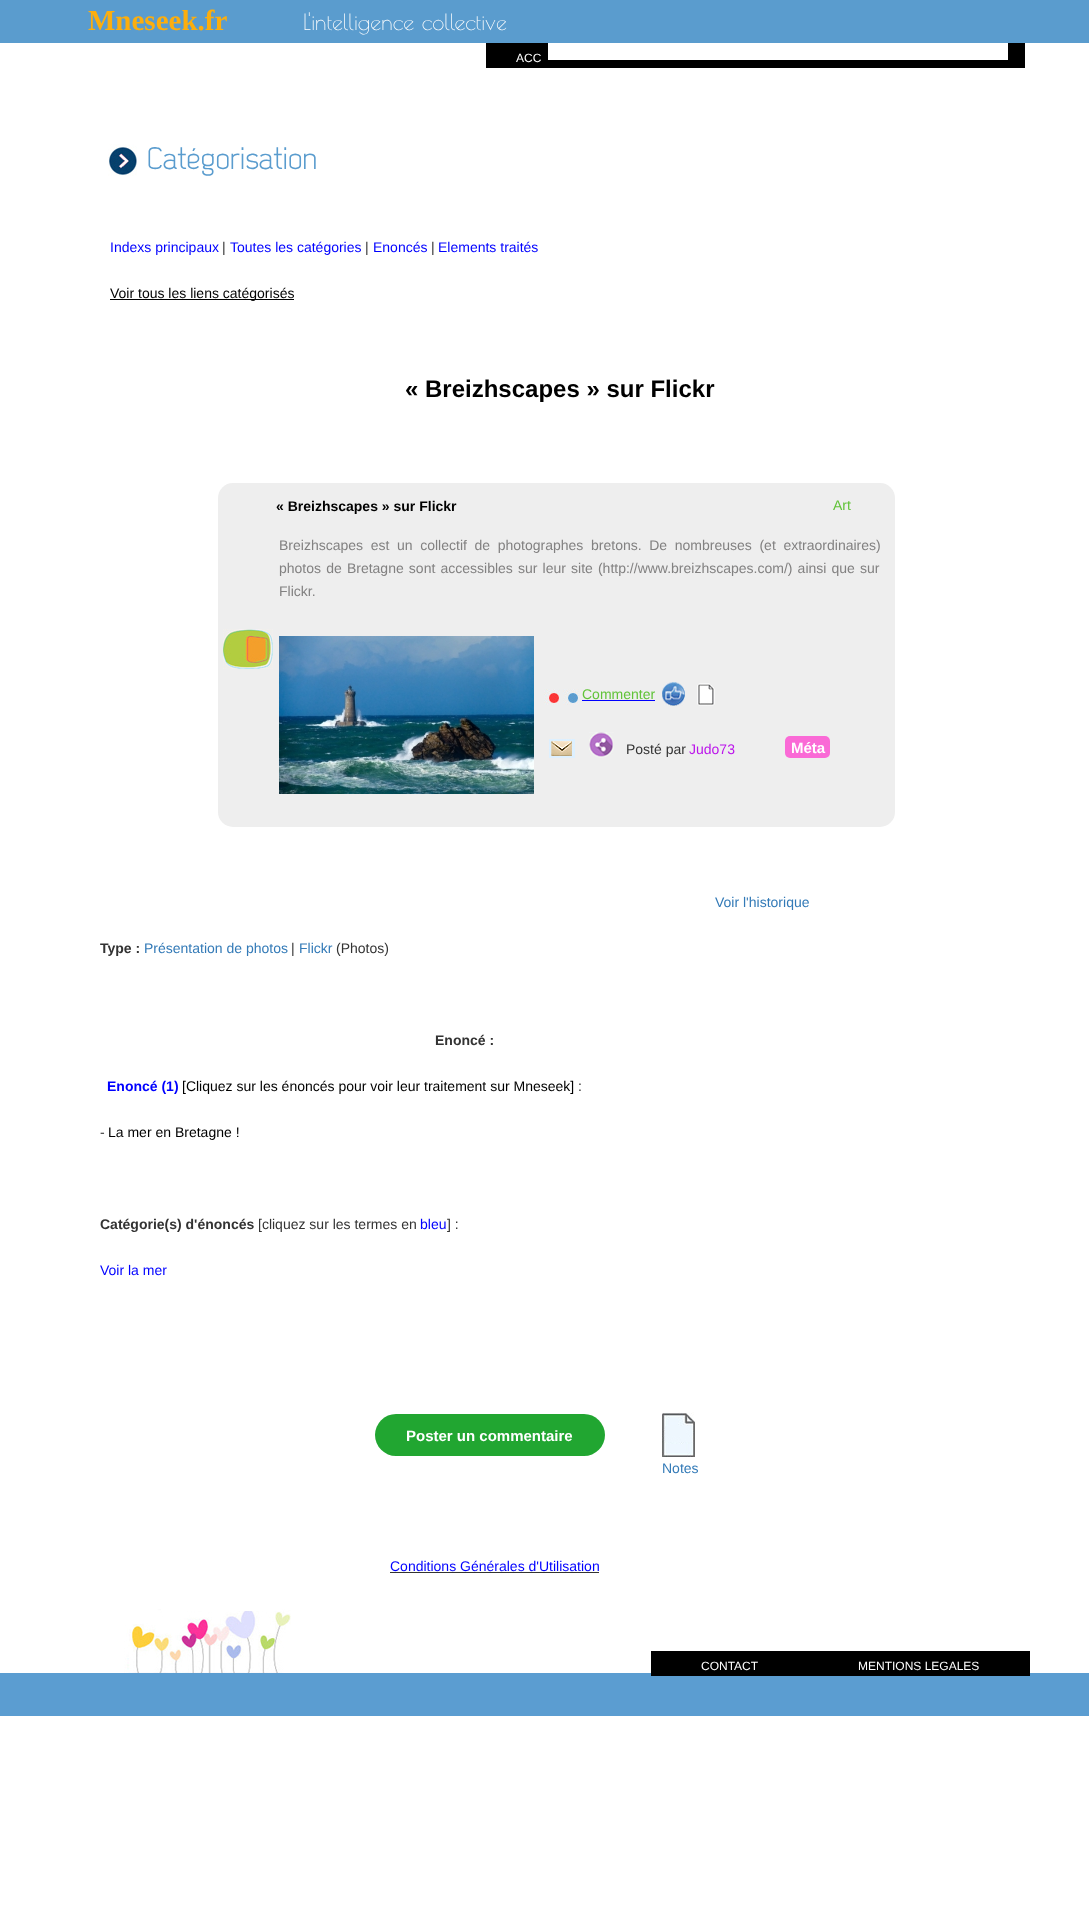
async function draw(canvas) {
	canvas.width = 1089;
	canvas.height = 1925;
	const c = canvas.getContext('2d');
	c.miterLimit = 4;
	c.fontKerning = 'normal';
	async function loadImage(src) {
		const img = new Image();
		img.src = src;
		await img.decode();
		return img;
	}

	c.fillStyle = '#fff';
	c.fillRect(0, 0, 1089, 1925);
	c.fillStyle = '#5a9cce';
	c.fillRect(0, 0, 1089, 43);
	c.font = 'bold 29px Liberation Serif';
	c.fillStyle = '#fcae0e';
	c.fillText('Mneseek.fr', 88, 30);
	c.font = '22px Poiret One';
	c.fillStyle = '#fff';
	c.fillText('L\'intelligence collective', 303, 30);
	c.fillStyle = '#000';
	c.fillRect(486, 43, 112, 25);
	c.font = '12px Liberation Sans';
	c.fillStyle = '#fff';
	c.fillText('ACC', 516, 62);
	for (const [x, y, w, h, color] of [
		[885, 43, 140, 25, '#000'],
		[598, 60, 287, 8, '#000'],
		[548, 43, 460, 17, '#fff'],
	]) {
		c.fillStyle = color;
		c.fillRect(x, y, w, h);
	}
	c.drawImage(await loadImage('img1.png'), 108, 144, 29, 32);
	c.font = '31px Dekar';
	c.fillStyle = '#5a9cce';
	c.fillText('Catégorisation', 147, 169);
	c.font = '14px Liberation Sans';
	c.fillStyle = '#00f';
	c.fillText('Indexs principaux', 110, 252);
	c.fillStyle = '#333';
	c.fillText('|', 222, 252);
	c.fillStyle = '#00f';
	c.fillText('Toutes les catégories', 230, 252);
	c.fillStyle = '#333';
	c.fillText('|', 365, 252);
	c.fillStyle = '#00f';
	c.fillText('Enoncés', 373, 252);
	c.fillStyle = '#333';
	c.fillText('|', 431, 252);
	c.fillStyle = '#00f';
	c.fillText('Elements traités', 438, 252);
	c.fillStyle = '#000';
	c.fillRect(110, 299, 184, 1);
	c.fillText('Voir tous les liens catégorisés', 110, 298);
	c.font = 'bold 24px Liberation Sans';
	c.fillText('« Breizhscapes » sur Flickr', 405, 397);
	c.fillStyle = '#eee';
	c.beginPath();
	c.roundRect(218, 483, 677, 344, 15);
	c.fill();
	c.drawImage(await loadImage('img2.png'), 223, 629, 50, 40);
	c.font = 'bold 14px Liberation Sans';
	c.fillStyle = '#000';
	c.fillText('« Breizhscapes » sur Flickr', 276, 511);
	c.font = '14px Liberation Sans';
	c.fillStyle = '#61c338';
	c.fillText('Art', 833, 510);
	c.wordSpacing = '3.75px';
	c.fillStyle = '#828181';
	c.fillText('Breizhscapes est un collectif de photographes bretons. De nombreuses (et extraordinaires)', 279, 550);
	c.wordSpacing = '1.25px';
	c.fillText('photos de Bretagne sont accessibles sur leur site (http://www.breizhscapes.com/) ainsi que sur', 279, 573);
	c.wordSpacing = '0px';
	c.fillText('Flickr.', 279, 596);
	c.drawImage(await loadImage('img3.png'), 279, 636, 255, 158);
	c.drawImage(await loadImage('img4.png'), 544, 689, 16, 16);
	c.drawImage(await loadImage('img5.png'), 563, 689, 16, 16);
	c.fillStyle = '#61c338';
	c.fillText('Commenter', 582, 699);
	c.fillStyle = '#00f';
	c.fillRect(582, 700, 73, 1);
	c.drawImage(await loadImage('img6.png'), 662, 682, 23, 24);
	c.drawImage(await loadImage('img7.png'), 697, 683, 18, 23);
	c.drawImage(await loadImage('img8.png'), 549, 739, 26, 19);
	c.drawImage(await loadImage('img9.png'), 589, 732, 25, 26);
	c.fillStyle = '#333';
	c.fillText('Posté par', 626, 754);
	c.fillStyle = '#bb13eb';
	c.fillText('Judo73', 689, 754);
	c.fillStyle = '#fa6ad6';
	c.beginPath();
	c.roundRect(785, 736, 45, 22, 5);
	c.fill();
	c.font = 'bold 15px Liberation Sans';
	c.fillStyle = '#fff';
	c.fillText('Méta', 791, 753);
	c.font = '14px Liberation Sans';
	c.fillStyle = '#337ab7';
	c.fillText('Voir l\'historique', 715, 907);
	c.font = 'bold 14px Liberation Sans';
	c.fillStyle = '#333';
	c.fillText('Type :', 100, 953);
	c.font = '14px Liberation Sans';
	c.fillStyle = '#337ab7';
	c.fillText('Présentation de photos', 144, 953);
	c.fillStyle = '#333';
	c.fillText('|', 291, 953);
	c.fillStyle = '#337ab7';
	c.fillText('Flickr', 299, 953);
	c.fillStyle = '#333';
	c.fillText('(Photos)', 336, 953);
	c.font = 'bold 14px Liberation Sans';
	c.fillText('Enoncé :', 435, 1045);
	c.fillStyle = '#00f';
	c.fillText('Enoncé (1)', 107, 1091);
	c.font = '14px Liberation Sans';
	c.fillStyle = '#000';
	c.fillText('[Cliquez sur les énoncés pour voir leur traitement sur Mneseek]', 182, 1091);
	c.fillStyle = '#333';
	c.fillText(':', 578, 1091);
	c.fillText('-', 100, 1137);
	c.fillStyle = '#000';
	c.fillText('La mer en Bretagne !', 108, 1137);
	c.font = 'bold 14px Liberation Sans';
	c.fillStyle = '#333';
	c.fillText('Catégorie(s) d\'énoncés', 100, 1229);
	c.font = '14px Liberation Sans';
	c.fillText('[cliquez sur les termes en', 258, 1229);
	c.fillStyle = '#00f';
	c.fillText('bleu', 420, 1229);
	c.fillStyle = '#333';
	c.fillText('] :', 447, 1229);
	c.fillStyle = '#00f';
	c.fillText('Voir la mer', 100, 1275);
	c.fillStyle = '#21a631';
	c.beginPath();
	c.roundRect(375, 1414, 230, 42, 21);
	c.fill();
	c.font = 'bold 15px Liberation Sans';
	c.fillStyle = '#fff';
	c.fillText('Poster un commentaire', 406, 1441);
	c.drawImage(await loadImage('img10.png'), 662, 1412, 34, 45);
	c.font = '14px Liberation Sans';
	c.fillStyle = '#337ab7';
	c.fillText('Notes', 662, 1473);
	c.fillStyle = '#00f';
	c.fillText('Conditions Générales d\'Utilisation', 390, 1571);
	c.fillStyle = '#333';
	c.fillRect(390, 1572, 209, 1);
	c.drawImage(await loadImage('img11.png'), 124, 1609, 167, 64);
	for (const [x, y, w, h, color] of [
		[161, 1609, 121, 2, '#fff'],
		[0, 1673, 1089, 43, '#5b9dd1'],
		[651, 1651, 379, 25, '#000'],
	]) {
		c.fillStyle = color;
		c.fillRect(x, y, w, h);
	}
	c.font = '12px Liberation Sans';
	c.fillStyle = '#fff';
	c.fillText('CONTACT', 701, 1670);
	c.fillText('MENTIONS LEGALES', 858, 1670);
}

draw(document.querySelector('canvas'));
